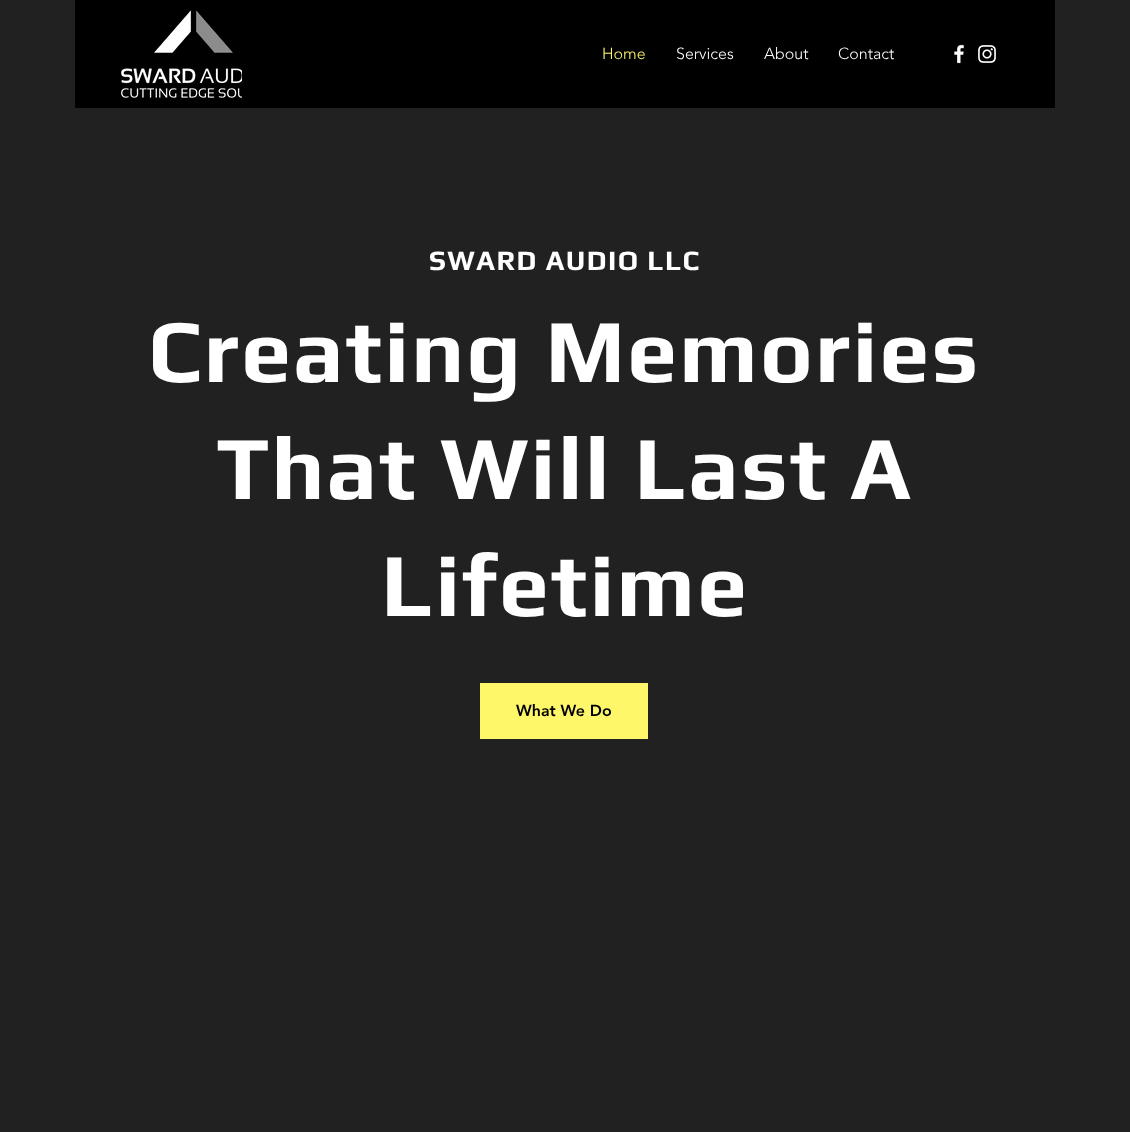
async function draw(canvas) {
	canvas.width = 1130;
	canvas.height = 1132;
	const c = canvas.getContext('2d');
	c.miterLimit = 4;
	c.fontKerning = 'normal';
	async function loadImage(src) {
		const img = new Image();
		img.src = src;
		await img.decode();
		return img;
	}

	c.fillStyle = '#212121';
	c.fillRect(0, 0, 1130, 1132);
	c.fillStyle = '#000';
	c.fillRect(75, 0, 980, 108);
	c.drawImage(await loadImage('img1.png'), 121, 10, 121, 88);
	c.font = '300 16px "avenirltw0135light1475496"';
	c.fillStyle = '#fff76a';
	c.fillText('Home', 602, 59);
	c.fillStyle = '#fff';
	for (const [text, x, y] of [
		['Services', 676, 59],
		['About', 764, 59],
		['Contact', 838, 59],
	]) {
		c.fillText(text, x, y);
	}
	c.drawImage(await loadImage('img2.png'), 954, 44, 10, 20);
	c.drawImage(await loadImage('img3.png'), 978, 45, 18, 18);
	c.letterSpacing = '1.4px';
	c.font = 'bold 28px Play';
	c.fillText('SWARD AUDIO LLC', 429, 270);
	c.letterSpacing = '1.75px';
	c.font = 'bold 90px Play';
	for (const [text, x, y] of [
		['Creating Memories', 148, 382],
		['That Will Last A', 216, 499],
		['Lifetime', 381, 616],
	]) {
		c.fillText(text, x, y);
	}
	c.fillStyle = '#fff76a';
	c.fillRect(480, 683, 168, 56);
	c.letterSpacing = '0px';
	c.font = '900 16px "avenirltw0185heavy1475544"';
	c.fillStyle = '#000';
	c.fillText('What We Do', 516, 716);
}

draw(document.querySelector('canvas'));
